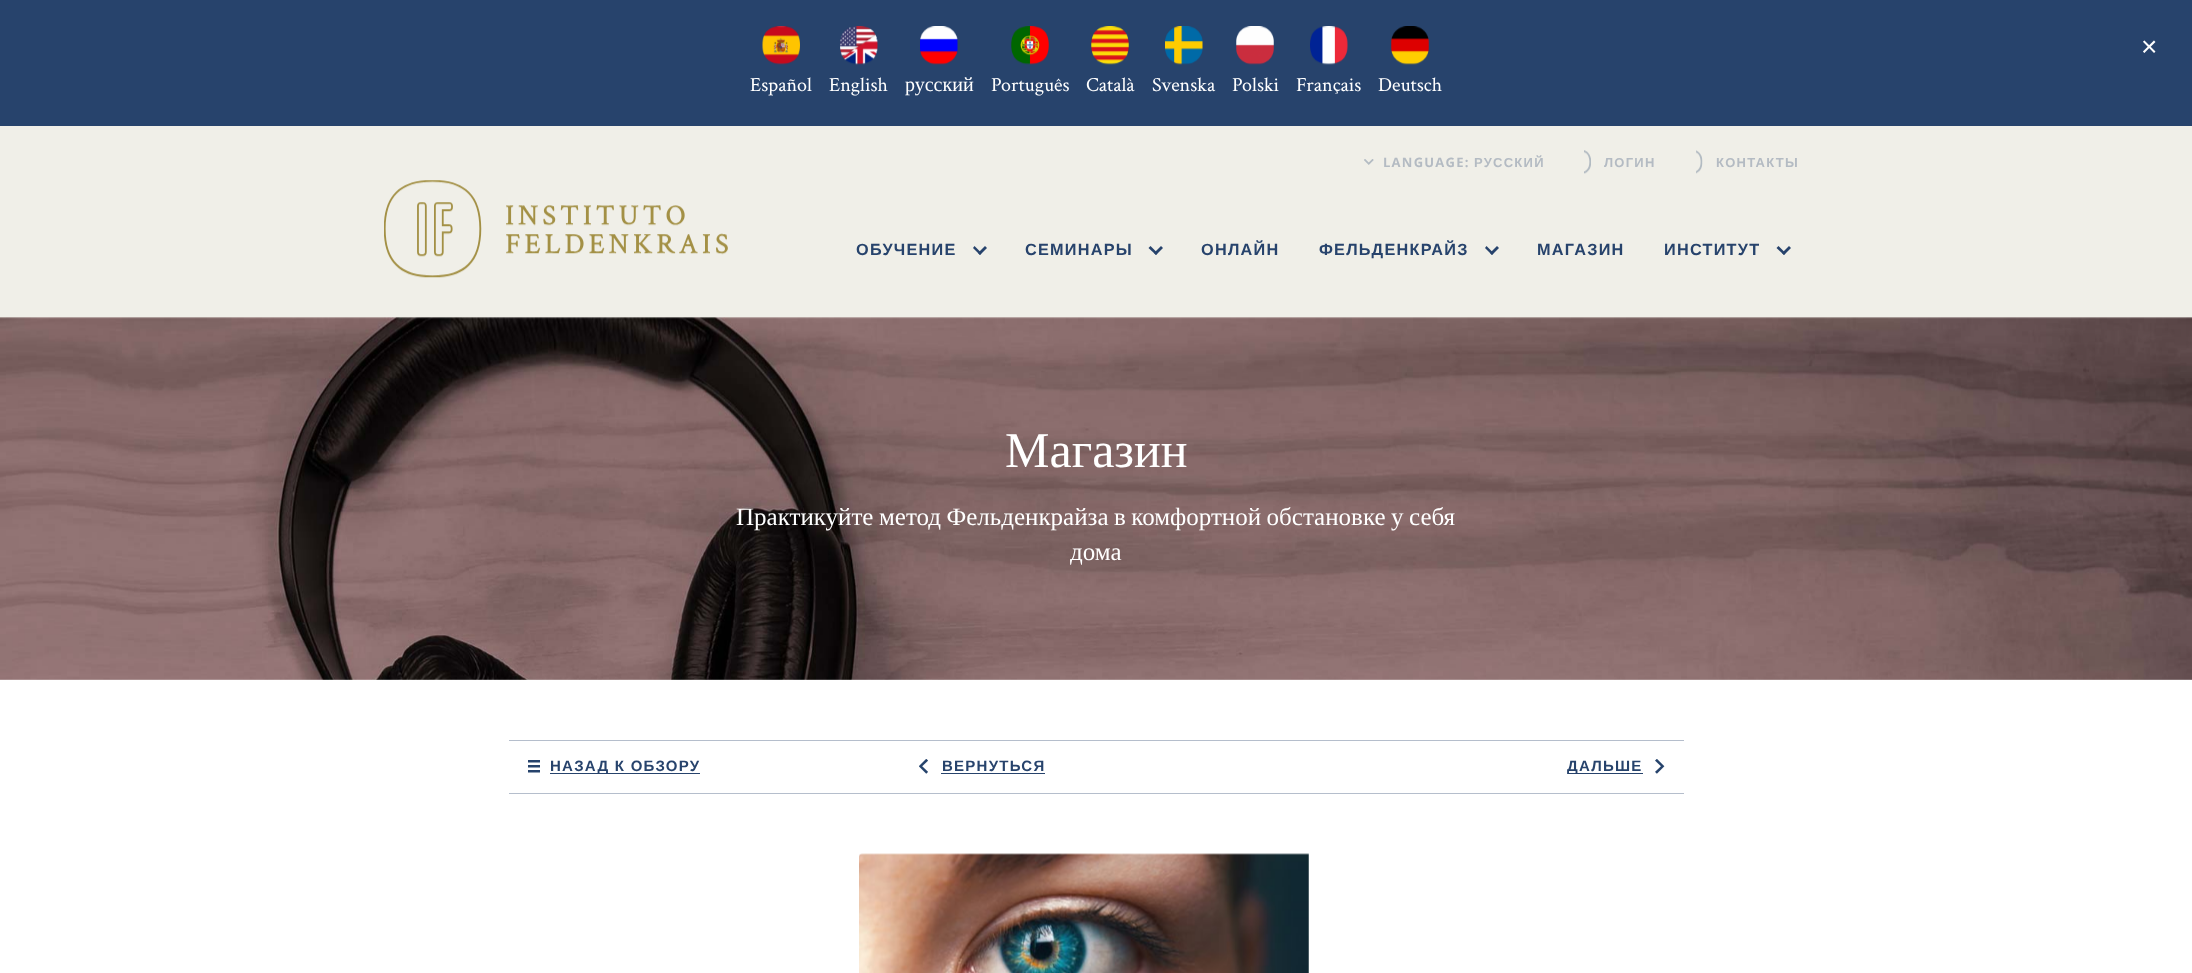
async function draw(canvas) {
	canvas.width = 2192;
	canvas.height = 973;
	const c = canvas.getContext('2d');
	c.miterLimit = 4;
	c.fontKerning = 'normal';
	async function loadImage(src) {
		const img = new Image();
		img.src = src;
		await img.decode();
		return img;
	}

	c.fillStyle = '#fff';
	c.fillRect(0, 0, 2192, 973);
	c.fillStyle = '#27436c';
	c.fillRect(0, 0, 2192, 126);
	c.font = '28px Liberation Sans';
	c.fillStyle = '#fff';
	c.fillText('×', 2141, 56);
	c.drawImage(await loadImage('img1.png'), 762, 26, 38, 39);
	c.font = '20px Crimson Text';
	c.fillText('Español', 750, 91);
	c.drawImage(await loadImage('img2.png'), 840, 26, 38, 39);
	c.fillText('English', 829, 91);
	c.drawImage(await loadImage('img3.png'), 920, 26, 38, 39);
	c.font = '20px Liberation Serif';
	c.fillText('русский', 905, 91);
	c.drawImage(await loadImage('img4.png'), 1011, 26, 38, 39);
	c.font = '20px Crimson Text';
	c.fillText('Português', 991, 91);
	c.drawImage(await loadImage('img5.png'), 1091, 26, 38, 39);
	c.fillText('Català', 1086, 91);
	c.drawImage(await loadImage('img6.png'), 1165, 26, 38, 39);
	c.fillText('Svenska', 1152, 91);
	c.drawImage(await loadImage('img7.png'), 1236, 26, 38, 39);
	c.fillText('Polski', 1232, 91);
	c.drawImage(await loadImage('img8.png'), 1310, 26, 38, 39);
	c.fillText('Français', 1296, 91);
	c.drawImage(await loadImage('img9.png'), 1391, 26, 38, 39);
	c.fillText('Deutsch', 1378, 91);
	c.fillStyle = '#f0efe8';
	c.fillRect(0, 126, 2192, 192);
	c.drawImage(await loadImage('img10.png'), 1364, 159, 10, 6);
	c.letterSpacing = '1.25px';
	c.font = 'bold 13px Open Sans';
	c.fillStyle = '#b4bbc3';
	c.fillText('LANGUAGE:', 1383, 167);
	c.font = 'bold 13px Liberation Sans';
	c.fillText('РУССКИЙ', 1474, 167);
	c.drawImage(await loadImage('img11.png'), 1584, 150, 7, 24);
	c.fillText('ЛОГИН', 1604, 167);
	c.drawImage(await loadImage('img12.png'), 1696, 150, 7, 24);
	c.fillText('КОНТАКТЫ', 1716, 167);
	c.drawImage(await loadImage('img13.png'), 384, 180, 344, 98);
	c.font = 'bold 16.25px Liberation Sans';
	c.fillStyle = '#27436c';
	c.fillText('ОБУЧЕНИЕ', 856, 255);
	c.beginPath();
	c.moveTo(985, 246);
	c.lineTo(987, 248);
	c.lineTo(980, 255);
	c.lineTo(978, 253);
	c.closePath();
	c.fill();
	c.beginPath();
	c.moveTo(974.5, 246);
	c.lineTo(981.5, 253);
	c.lineTo(980, 255);
	c.lineTo(973, 248);
	c.closePath();
	c.fill();
	c.fillText('СЕМИНАРЫ', 1025, 255);
	c.beginPath();
	c.moveTo(1161, 246);
	c.lineTo(1163, 248);
	c.lineTo(1156, 255);
	c.lineTo(1154, 253);
	c.closePath();
	c.fill();
	c.beginPath();
	c.moveTo(1150.5, 246);
	c.lineTo(1157.5, 253);
	c.lineTo(1156, 255);
	c.lineTo(1148.5, 248);
	c.closePath();
	c.fill();
	c.fillText('ОНЛАЙН', 1201, 255);
	c.fillText('ФЕЛЬДЕНКРАЙЗ', 1319, 255);
	c.beginPath();
	c.moveTo(1497, 246);
	c.lineTo(1499, 248);
	c.lineTo(1492, 255);
	c.lineTo(1490, 253);
	c.closePath();
	c.fill();
	c.beginPath();
	c.moveTo(1486.5, 246);
	c.lineTo(1493.5, 253);
	c.lineTo(1492, 255);
	c.lineTo(1485, 248);
	c.closePath();
	c.fill();
	c.fillText('МАГАЗИН', 1537, 255);
	c.fillText('ИНСТИТУТ', 1664, 255);
	c.beginPath();
	c.moveTo(1789, 246);
	c.lineTo(1791, 248);
	c.lineTo(1784, 255);
	c.lineTo(1782, 253);
	c.closePath();
	c.fill();
	c.beginPath();
	c.moveTo(1778.5, 246);
	c.lineTo(1785.5, 253);
	c.lineTo(1784, 255);
	c.lineTo(1776.5, 248);
	c.closePath();
	c.fill();
	c.drawImage(await loadImage('img14.png'), 0, 317, 2192, 363);
	c.letterSpacing = '0px';
	c.font = '50px Liberation Serif';
	c.fillStyle = '#fff';
	c.fillText('Магазин', 1005, 467);
	c.wordSpacing = '-0.75px';
	c.font = '25px Liberation Serif';
	c.fillText('Практикуйте метод Фельденкрайза в комфортной обстановке у себя', 736, 525);
	c.wordSpacing = '0px';
	c.fillText('дома', 1070, 560);
	c.fillStyle = '#b5becc';
	c.fillRect(509, 740, 1175, 1);
	c.fillRect(509, 793, 1175, 1);
	c.drawImage(await loadImage('img15.png'), 528, 760, 12, 13);
	c.fillStyle = '#27436c';
	c.fillRect(550, 773, 150, 1);
	c.letterSpacing = '1.25px';
	c.font = 'bold 15px Liberation Sans';
	c.fillText('НАЗАД К ОБЗОРУ', 550, 771);
	c.drawImage(await loadImage('img16.png'), 919, 759, 9, 15);
	c.fillText('ВЕРНУТЬСЯ', 942, 771);
	c.fillRect(941, 773, 104, 1);
	c.drawImage(await loadImage('img17.png'), 1655, 759, 10, 15);
	c.fillRect(1568, 773, 75, 1);
	c.fillText('ДАЛЬШЕ', 1567, 771);
	c.drawImage(await loadImage('img18.png'), 859, 853, 450, 120);
}

draw(document.querySelector('canvas'));
